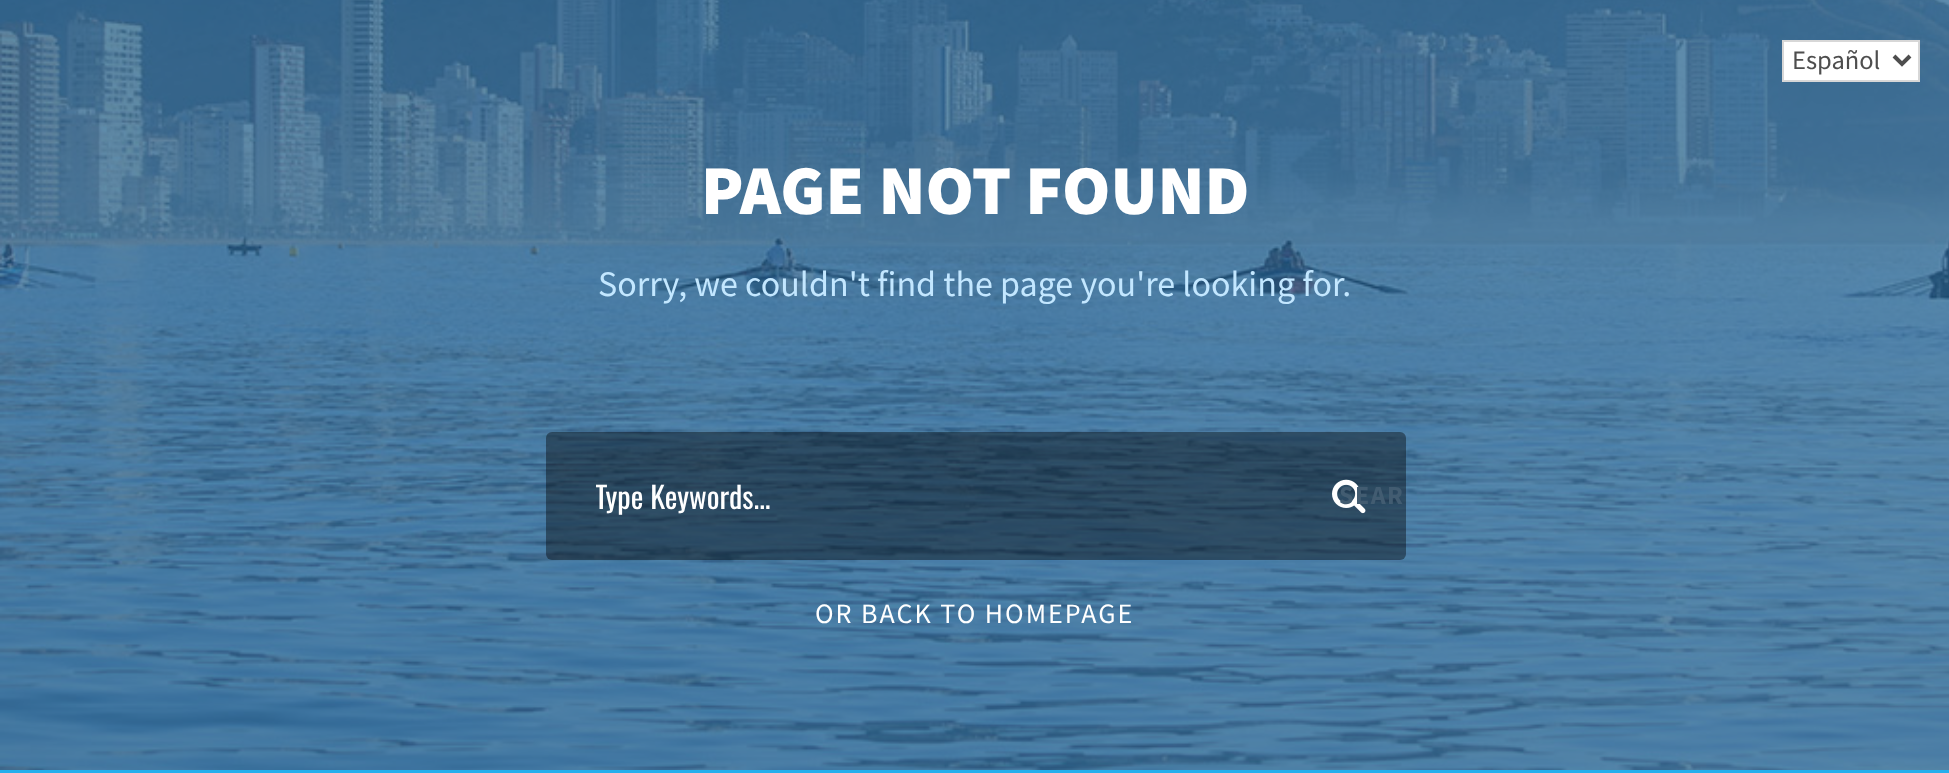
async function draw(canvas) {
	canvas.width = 1949;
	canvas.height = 773;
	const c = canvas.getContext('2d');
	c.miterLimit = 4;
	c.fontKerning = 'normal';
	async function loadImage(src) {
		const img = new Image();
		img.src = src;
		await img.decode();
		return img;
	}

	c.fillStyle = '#25afed';
	c.fillRect(0, 0, 1949, 773);
	c.fillStyle = '#23618e';
	c.fillRect(0, 0, 1949, 770);
	c.drawImage(await loadImage('img1.png'), 0, 0, 1949, 770);
	c.fillStyle = '#fff';
	c.beginPath();
	c.rect(1783, 41, 136, 40);
	c.fill();
	c.strokeStyle = '#d7d7d7';
	c.lineWidth = 2;
	c.stroke();
	c.beginPath();
	c.moveTo(1894, 56);
	c.lineTo(1902, 64);
	c.lineTo(1910, 56);
	c.strokeStyle = '#4e4e4e';
	c.lineWidth = 4;
	c.stroke();
	c.font = '26.5px Source Sans Pro';
	c.fillStyle = '#4e4e4e';
	c.fillText('Español', 1792, 69);
	c.font = '900 70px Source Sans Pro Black';
	c.fillStyle = '#fff';
	c.fillText('PAGE NOT FOUND', 701, 214);
	c.font = '36px Source Sans Pro';
	c.fillStyle = '#c3e7ff';
	c.fillText('Sorry, we couldn\'t find the page you\'re looking for.', 598, 296);
	c.fillStyle = '#00000066';
	c.beginPath();
	c.roundRect(546, 432, 860, 128, 6);
	c.fill();
	c.save();
	c.beginPath();
	c.rect(596, 474, 690, 44);
	c.clip();
	c.font = '30px Oswald';
	c.fillStyle = '#fff';
	c.fillText('Type Keywords...', 595, 509);
	c.restore();
	c.drawImage(await loadImage('img2.png'), 1332, 479, 34, 35);
	c.letterSpacing = '1.5px';
	c.font = 'bold 26px Source Sans Pro';
	c.fillStyle = '#425c71';
	c.fillText('SEAR', 1339, 504);
	c.letterSpacing = '2px';
	c.font = '28px Source Sans Pro';
	c.fillStyle = '#fff';
	c.fillText('OR BACK TO HOMEPAGE', 815, 623);
}

draw(document.querySelector('canvas'));
